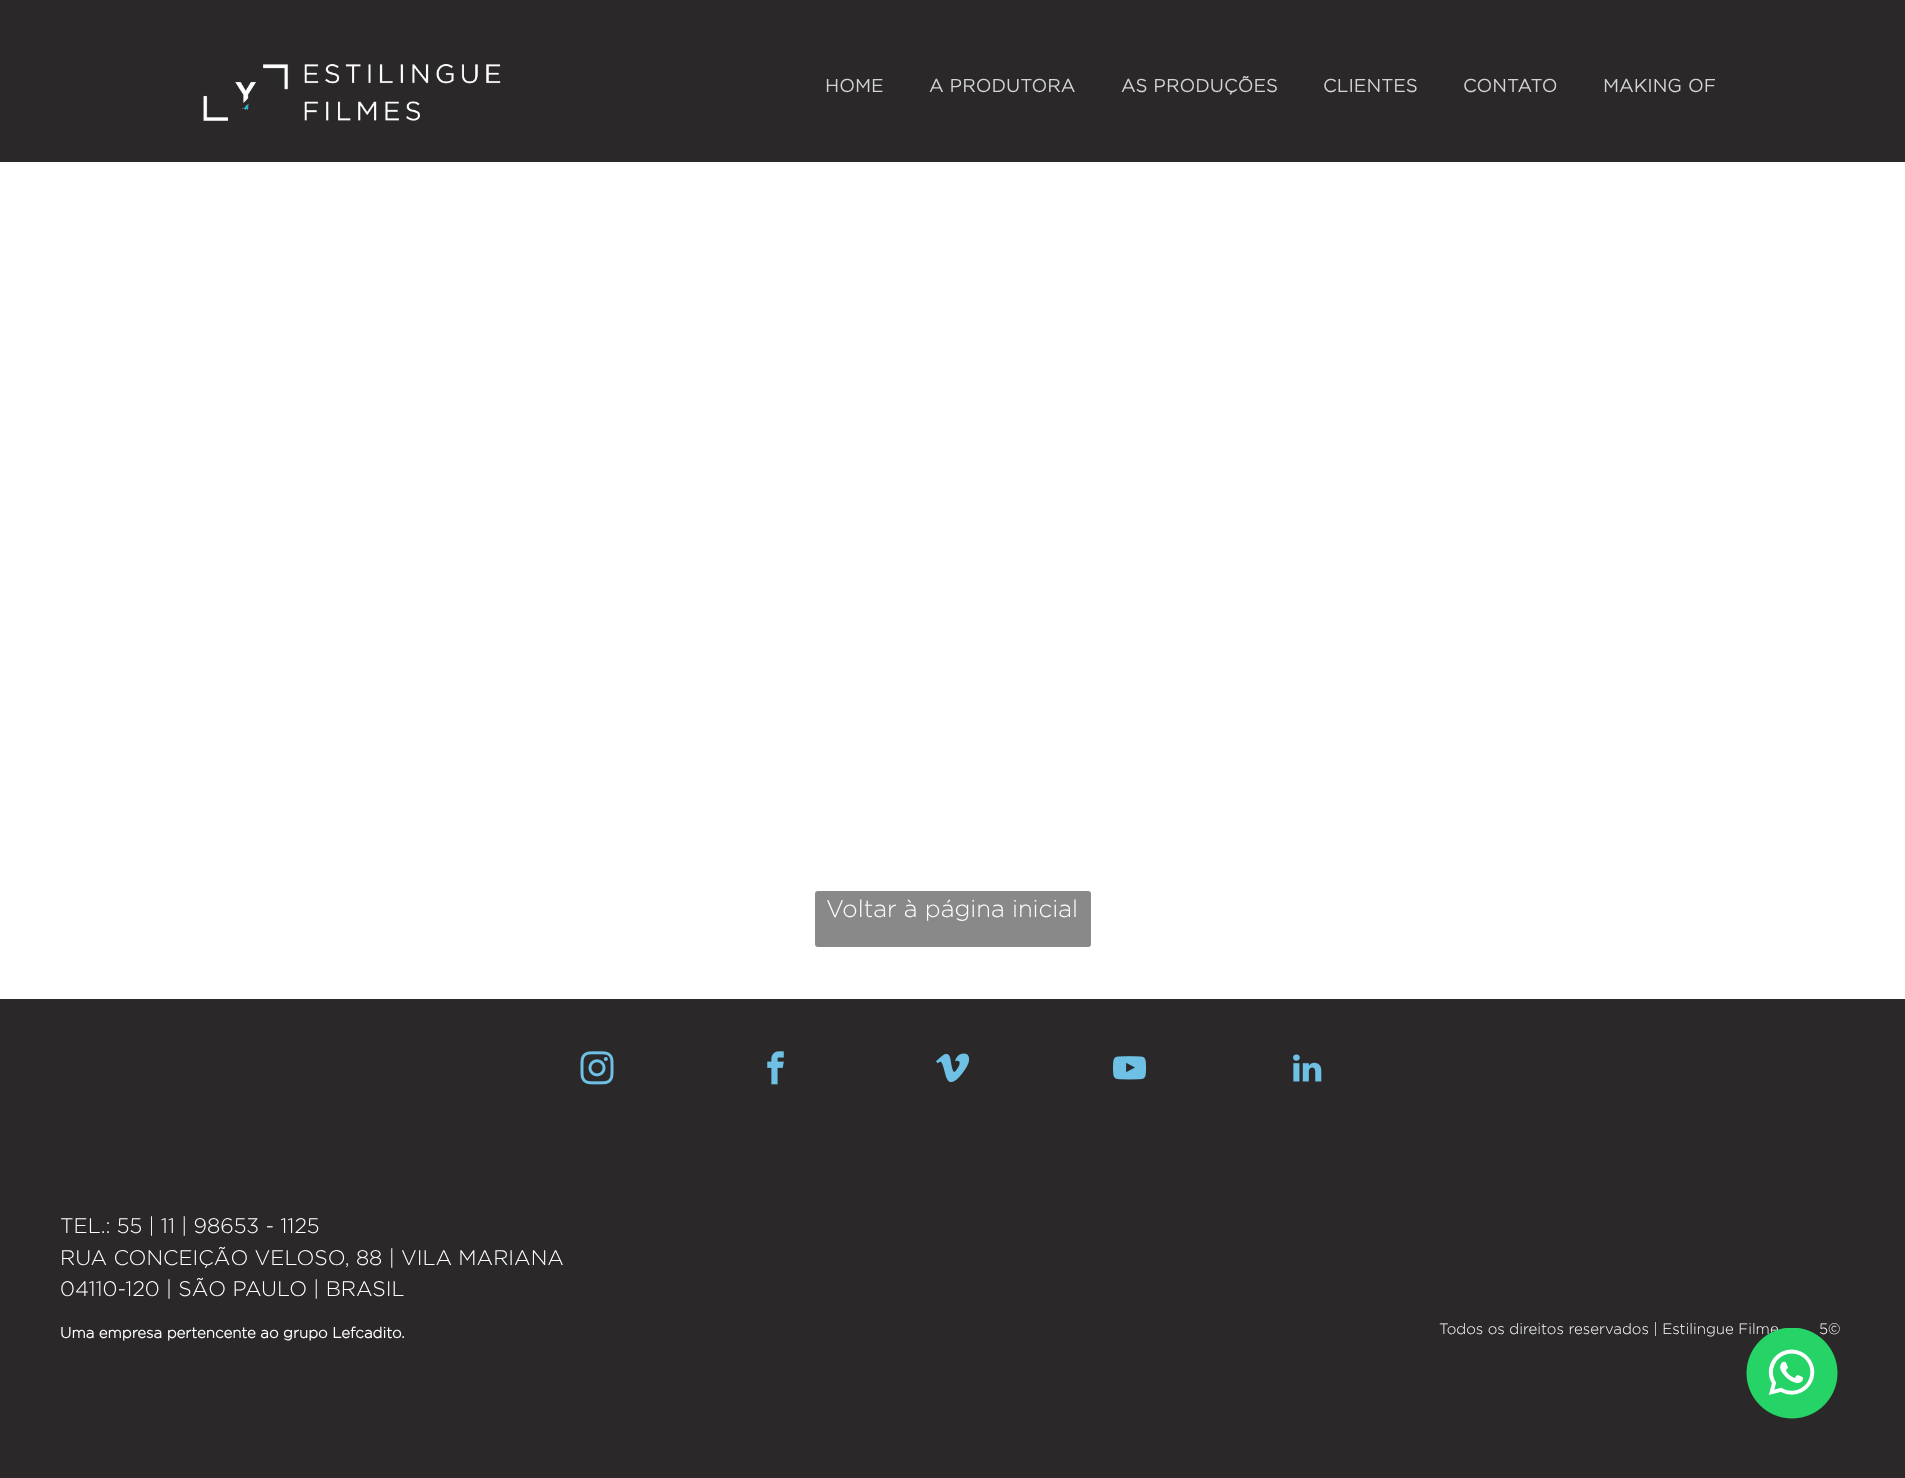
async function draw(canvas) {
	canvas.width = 1905;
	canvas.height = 1478;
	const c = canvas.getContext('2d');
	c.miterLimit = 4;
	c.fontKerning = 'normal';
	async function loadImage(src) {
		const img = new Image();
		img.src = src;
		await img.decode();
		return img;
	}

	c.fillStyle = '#2a2829';
	c.fillRect(0, 0, 1905, 1478);
	c.drawImage(await loadImage('img1.png'), 203, 63, 298, 58);
	c.letterSpacing = '0.5px';
	c.font = 'bold 18px Gotham';
	c.fillStyle = '#d4d4d4';
	for (const [text, x, y] of [
		['HOME', 825, 92],
		['A PRODUTORA', 929, 92],
		['AS PRODUÇÕES', 1121, 92],
		['CLIENTES', 1323, 92],
		['CONTATO', 1463, 92],
		['MAKING OF', 1603, 92],
	]) {
		c.fillText(text, x, y);
	}
	c.fillStyle = '#fff';
	c.fillRect(0, 162, 1905, 837);
	c.fillStyle = '#898989';
	c.beginPath();
	c.roundRect(815, 891, 276, 56, 3);
	c.fill();
	c.letterSpacing = '0px';
	c.font = '300 24px Gotham';
	c.fillStyle = '#fff';
	c.fillText('Voltar à página inicial', 826, 917);
	c.drawImage(await loadImage('img2.png'), 580, 1051, 34, 34);
	c.drawImage(await loadImage('img3.png'), 767, 1051, 17, 34);
	c.drawImage(await loadImage('img4.png'), 936, 1053, 34, 30);
	c.drawImage(await loadImage('img5.png'), 1113, 1056, 34, 24);
	c.drawImage(await loadImage('img6.png'), 1293, 1054, 29, 28);
	c.font = '300 21px Gotham';
	for (const [text, x, y] of [
		['TEL.: 55 | 11 | 98653 - 1125', 60, 1233],
		['RUA CONCEIÇÃO VELOSO, 88 | VILA MARIANA', 60, 1265],
		['04110-120 | SÃO PAULO | BRASIL', 60, 1296],
	]) {
		c.fillText(text, x, y);
	}
	c.font = 'bold 15px Gotham';
	c.fillText('Uma empresa pertencente ao grupo Lefcadito.', 60, 1338);
	c.font = '300 15px Gotham';
	c.fillText('Todos os direitos reservados | Estilingue Filme', 1439, 1334);
	c.fillText('5©', 1819, 1334);
	c.drawImage(await loadImage('img7.png'), 1746, 1328, 92, 91);
}

draw(document.querySelector('canvas'));
